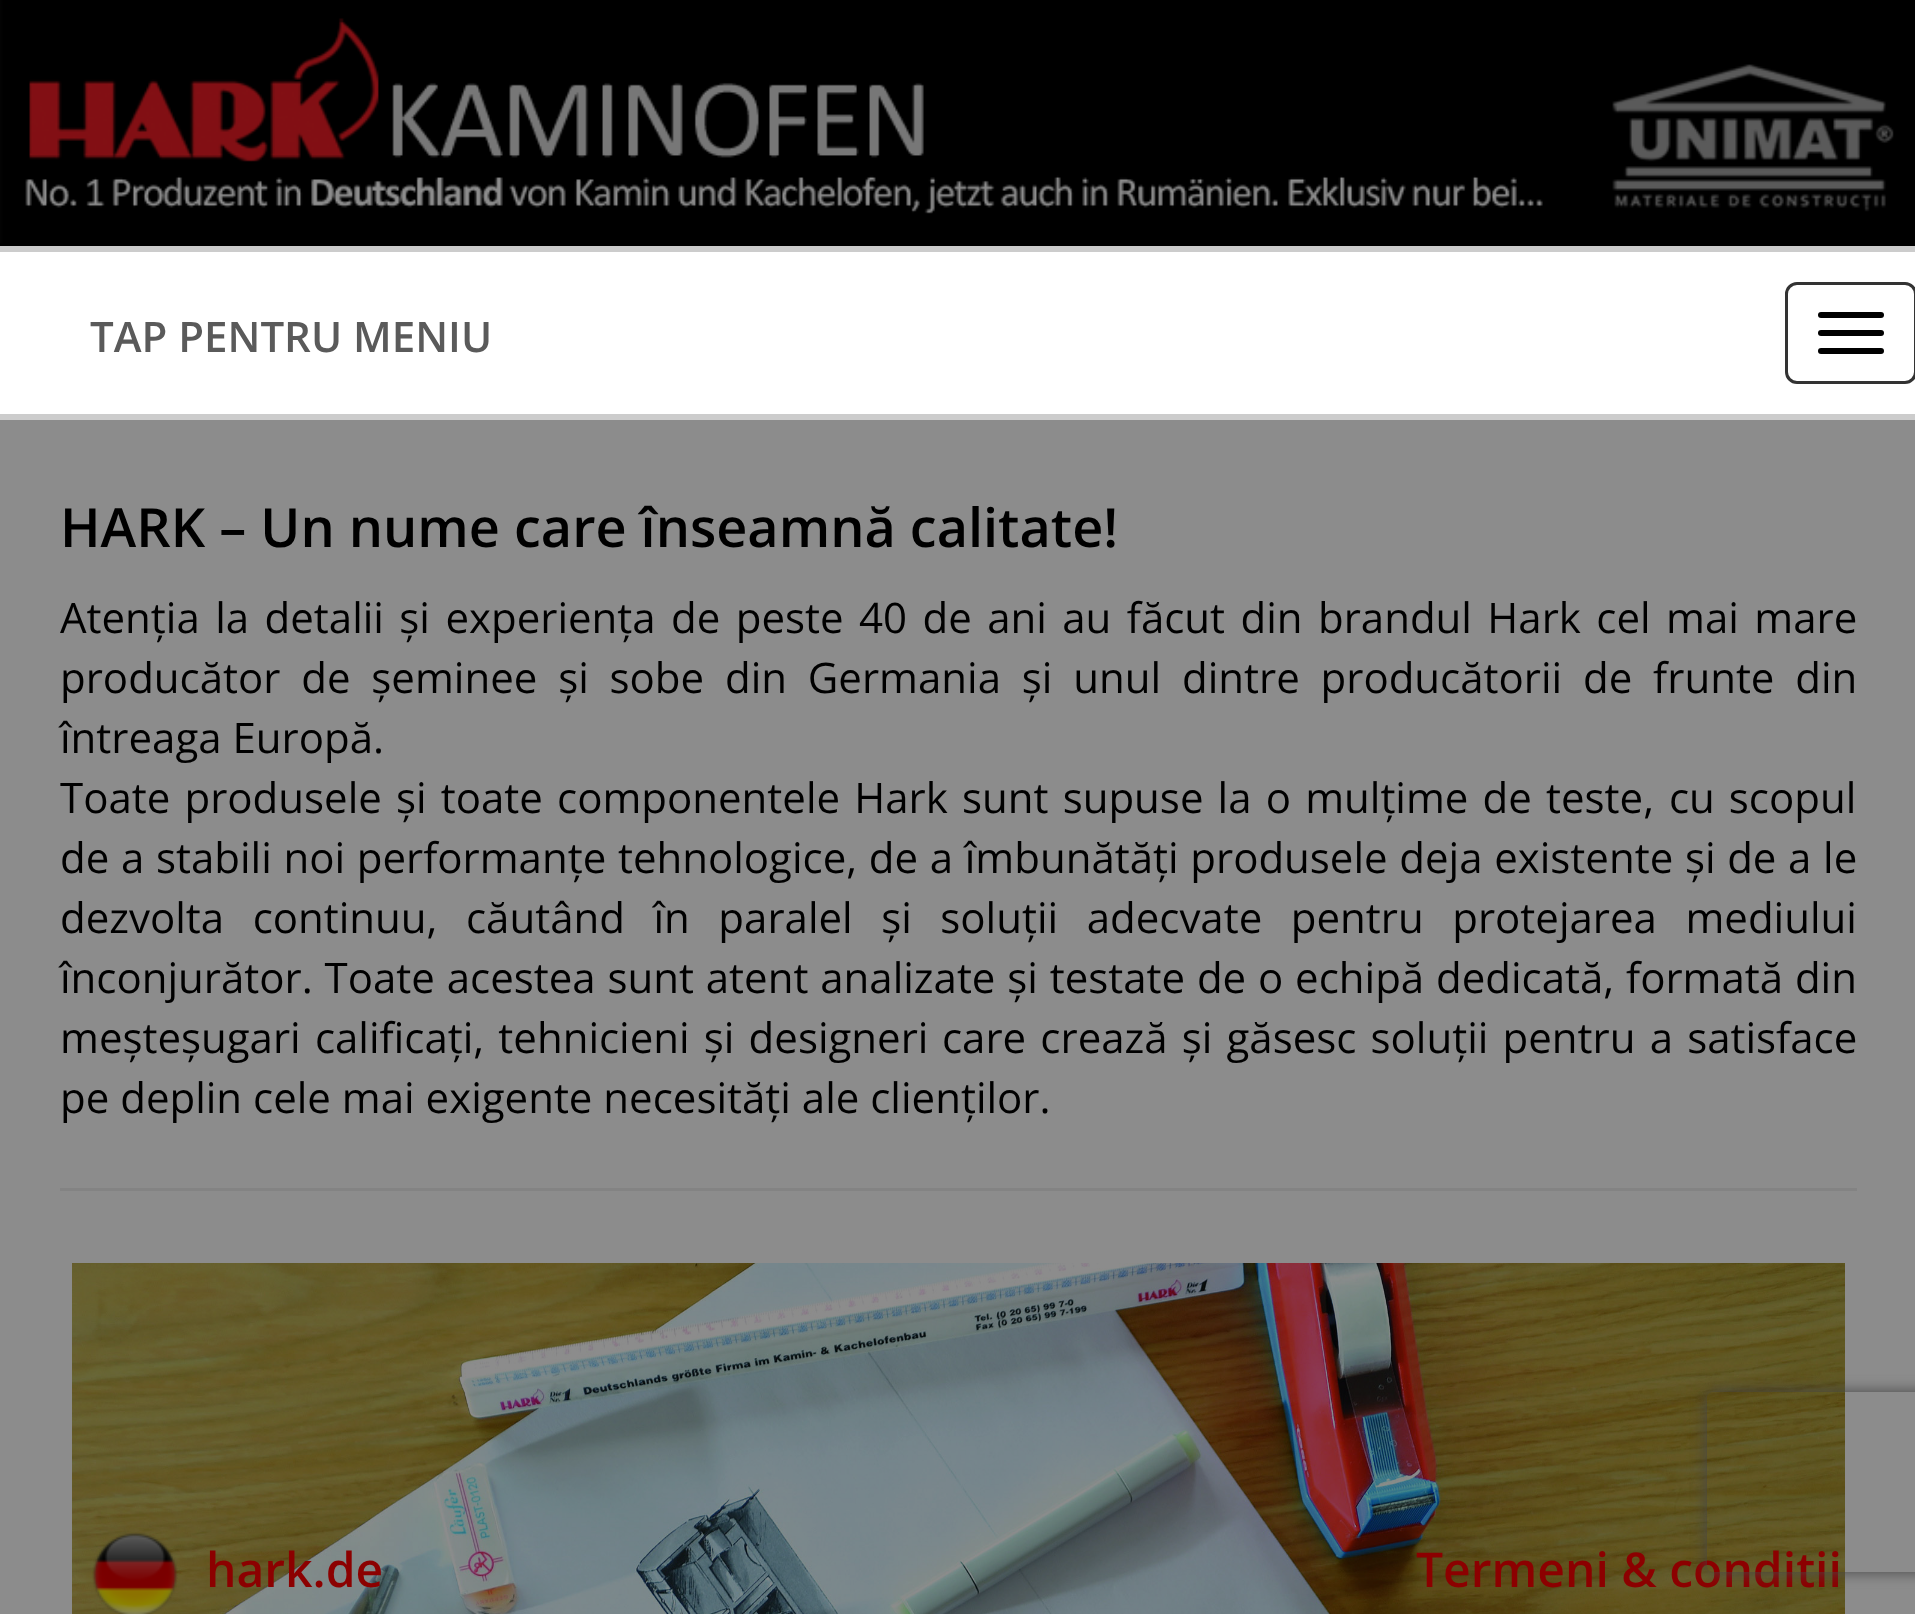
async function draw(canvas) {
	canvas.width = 1915;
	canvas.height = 1614;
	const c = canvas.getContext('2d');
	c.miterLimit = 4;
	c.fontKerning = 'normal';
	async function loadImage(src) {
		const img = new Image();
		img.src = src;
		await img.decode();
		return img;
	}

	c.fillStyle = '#000';
	c.fillRect(0, 0, 1915, 1614);
	c.drawImage(await loadImage('img1.png'), 0, 0, 1894, 243);
	for (const [x, y, w, h, color] of [
		[0, 252, 1915, 162, '#fff'],
		[0, 246, 1915, 6, '#ccc'],
		[0, 414, 1915, 6, '#ccc'],
	]) {
		c.fillStyle = color;
		c.fillRect(x, y, w, h);
	}
	c.font = '600 42px Open Sans';
	c.fillStyle = '#5a5a5a';
	c.fillText('TAP PENTRU MENIU', 90, 352);
	c.beginPath();
	c.roundRect(1786.5, 283.5, 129, 99, 10.5);
	c.strokeStyle = '#333';
	c.lineWidth = 3;
	c.stroke();
	c.fillStyle = '#000';
	c.beginPath();
	c.roundRect(1818, 312, 66, 6, 3);
	c.fill();
	c.beginPath();
	c.roundRect(1818, 330, 66, 6, 3);
	c.fill();
	c.beginPath();
	c.roundRect(1818, 348, 66, 6, 3);
	c.fill();
	c.fillStyle = '#8c8c8c';
	c.fillRect(0, 420, 1915, 1194);
	c.font = '600 54px Open Sans';
	c.fillStyle = '#000';
	c.fillText('HARK – Un nume care înseamnă calitate!', 60, 547);
	c.wordSpacing = '4.5px';
	c.font = '42px Open Sans';
	c.fillText('Atenția la detalii și experiența de peste 40 de ani au făcut din brandul Hark cel mai mare', 60, 633);
	c.wordSpacing = '9.9px';
	c.fillText('producător de șeminee și sobe din Germania și unul dintre producătorii de frunte din', 60, 693);
	c.wordSpacing = '0px';
	c.fillText('întreaga Europă.', 60, 753);
	c.wordSpacing = '3.25px';
	c.fillText('Toate produsele și toate componentele Hark sunt supuse la o mulțime de teste,', 60, 813);
	c.wordSpacing = '3px';
	c.fillText('cu scopul', 1669, 813);
	c.wordSpacing = '0.75px';
	c.fillText('de a stabili noi performanțe tehnologice, de a îmbunătăți produsele deja existente și de a le', 60, 873);
	c.wordSpacing = '17.6px';
	c.fillText('dezvolta continuu, căutând în paralel și soluții adecvate pentru protejarea mediului', 60, 933);
	c.wordSpacing = '0.9px';
	c.fillText('înconjurător. Toate acestea sunt atent analizate și testate de o echipă dedicată, formată din', 60, 993);
	c.wordSpacing = '3.25px';
	c.fillText('meșteșugari calificați, tehnicieni și designeri', 60, 1053);
	c.fillText('care crează și găsesc soluții pentru a satisface', 942, 1053);
	c.wordSpacing = '0px';
	c.fillText('pe deplin cele mai exigente necesități ale clienților.', 60, 1113);
	c.fillStyle = '#838383';
	c.fillRect(60, 1188, 1797, 3);
	c.drawImage(await loadImage('img2.png'), 72, 1263, 1773, 351);
	c.drawImage(await loadImage('img3.png'), 92, 1532, 86, 82);
	c.font = '600 48px Open Sans';
	c.fillStyle = '#8c0000';
	c.fillText('hark.de', 206, 1587);
	c.fillText('Termeni & conditii', 1416, 1587);
	c.save();
	c.beginPath();
	c.moveTo(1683, 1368);
	c.lineTo(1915, 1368);
	c.lineTo(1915, 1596);
	c.lineTo(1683, 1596);
	c.closePath();
	c.moveTo(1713, 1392);
	c.lineTo(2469, 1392);
	c.bezierCurveTo(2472.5, 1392, 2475, 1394.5, 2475, 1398);
	c.lineTo(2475, 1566);
	c.bezierCurveTo(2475, 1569.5, 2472.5, 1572, 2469, 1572);
	c.lineTo(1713, 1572);
	c.bezierCurveTo(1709.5, 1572, 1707, 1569.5, 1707, 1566);
	c.lineTo(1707, 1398);
	c.bezierCurveTo(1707, 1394.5, 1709.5, 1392, 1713, 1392);
	c.closePath();
	c.clip('evenodd');
	c.fillStyle = '#464646';
	c.filter = 'blur(7.5px)';
	c.beginPath();
	c.roundRect(1707, 1392, 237, 180, 6);
	c.fill();
	c.filter = 'none';
	c.restore();
}

draw(document.querySelector('canvas'));
